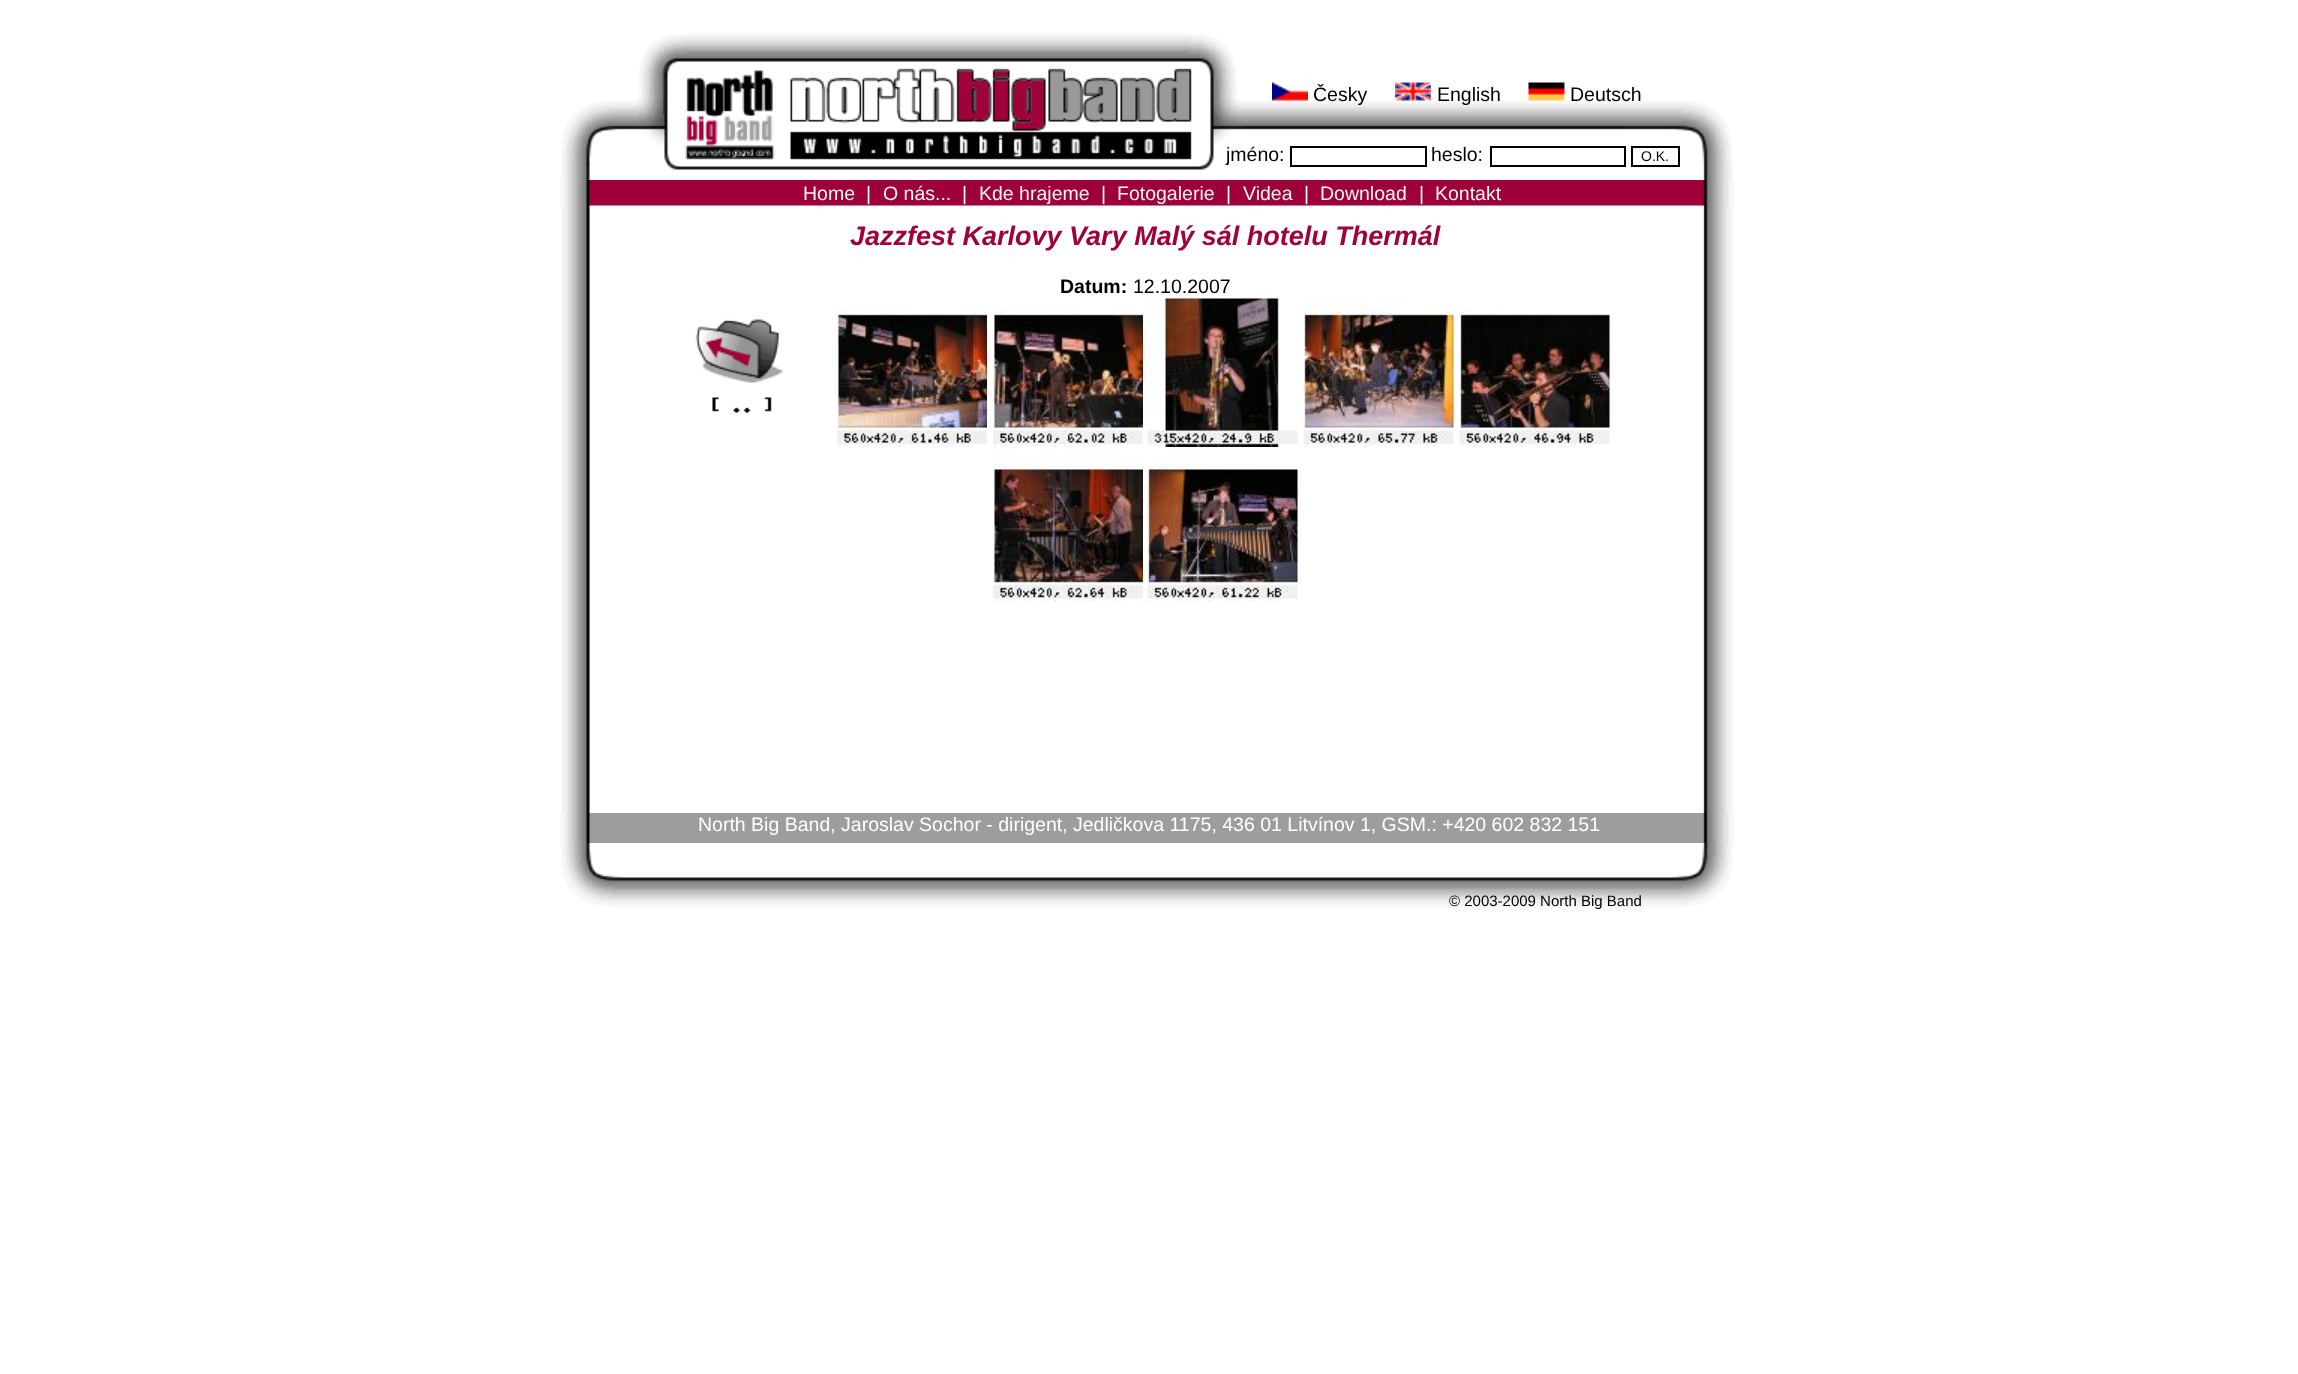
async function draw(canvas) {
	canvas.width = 2298;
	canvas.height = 1374;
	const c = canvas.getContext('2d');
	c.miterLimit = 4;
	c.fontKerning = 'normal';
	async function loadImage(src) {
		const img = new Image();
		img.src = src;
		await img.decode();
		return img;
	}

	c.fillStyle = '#fff';
	c.fillRect(0, 0, 2298, 1374);
	c.drawImage(await loadImage('img1.png'), 561, 180, 1173, 663);
	c.drawImage(await loadImage('img2.png'), 561, 30, 1173, 150);
	c.drawImage(await loadImage('img3.png'), 1272, 82, 36, 19);
	c.font = '19.5px Liberation Sans';
	c.fillStyle = '#000';
	c.fillText('Česky', 1313, 101);
	c.drawImage(await loadImage('img4.png'), 1395, 82, 36, 19);
	c.fillText('English', 1437, 101);
	c.drawImage(await loadImage('img5.png'), 1528, 82, 37, 19);
	c.fillText('Deutsch', 1570, 101);
	c.fillText('jméno:', 1226, 161);
	c.strokeStyle = '#000';
	c.lineWidth = 2;
	c.strokeRect(1291, 147, 135, 19);
	c.fillText('heslo:', 1431, 161);
	c.strokeRect(1491, 147, 134, 19);
	c.strokeRect(1632, 147, 47, 19);
	c.font = '14px Liberation Sans';
	c.fillText('O.K.', 1641, 161);
	c.drawImage(await loadImage('img6.png'), 560, 180, 1171, 26);
	c.font = '19.5px Liberation Sans';
	c.fillStyle = '#f3f3f3';
	c.fillText('Home', 803, 200);
	c.fillStyle = '#fff';
	c.fillText('|', 866, 200);
	c.fillStyle = '#f3f3f3';
	c.fillText('O nás...', 883, 200);
	c.fillStyle = '#fff';
	c.fillText('|', 962, 200);
	c.fillStyle = '#f3f3f3';
	c.fillText('Kde hrajeme', 979, 200);
	c.fillStyle = '#fff';
	c.fillText('|', 1101, 200);
	c.fillStyle = '#f3f3f3';
	c.fillText('Fotogalerie', 1117, 200);
	c.fillStyle = '#fff';
	c.fillText('|', 1226, 200);
	c.fillStyle = '#f3f3f3';
	c.fillText('Videa', 1243, 200);
	c.fillStyle = '#fff';
	c.fillText('|', 1304, 200);
	c.fillStyle = '#f3f3f3';
	c.fillText('Download', 1320, 200);
	c.fillStyle = '#fff';
	c.fillText('|', 1419, 200);
	c.fillStyle = '#f3f3f3';
	c.fillText('Kontakt', 1435, 200);
	c.font = 'italic bold 27px Liberation Sans';
	c.fillStyle = '#9f013b';
	c.fillText('Jazzfest Karlovy Vary Malý sál hotelu Thermál', 850, 245);
	c.font = 'bold 19.5px Liberation Sans';
	c.fillStyle = '#000';
	c.fillText('Datum:', 1060, 293);
	c.font = '19.5px Liberation Sans';
	c.fillText('12.10.2007', 1133, 293);
	c.drawImage(await loadImage('img7.png'), 695, 319, 89, 94);
	c.drawImage(await loadImage('img8.png'), 837, 309, 150, 138);
	c.drawImage(await loadImage('img9.png'), 993, 310, 150, 137);
	c.drawImage(await loadImage('img10.png'), 1147, 297, 151, 150);
	c.drawImage(await loadImage('img11.png'), 1303, 297, 151, 150);
	c.drawImage(await loadImage('img12.png'), 1459, 310, 151, 137);
	c.drawImage(await loadImage('img13.png'), 993, 451, 150, 151);
	c.drawImage(await loadImage('img14.png'), 1147, 451, 151, 151);
	c.drawImage(await loadImage('img15.png'), 560, 813, 1171, 30);
	c.fillStyle = '#fff';
	c.fillText('North Big Band, Jaroslav Sochor - dirigent, Jedličkova 1175, 436 01 Litvínov 1, GSM.: +420 602 832 151', 698, 831);
	c.drawImage(await loadImage('img16.png'), 560, 843, 1174, 75);
	c.font = '15px Liberation Sans';
	c.fillStyle = '#000';
	c.fillText('© 2003-2009 North Big Band', 1449, 906);
}

draw(document.querySelector('canvas'));
